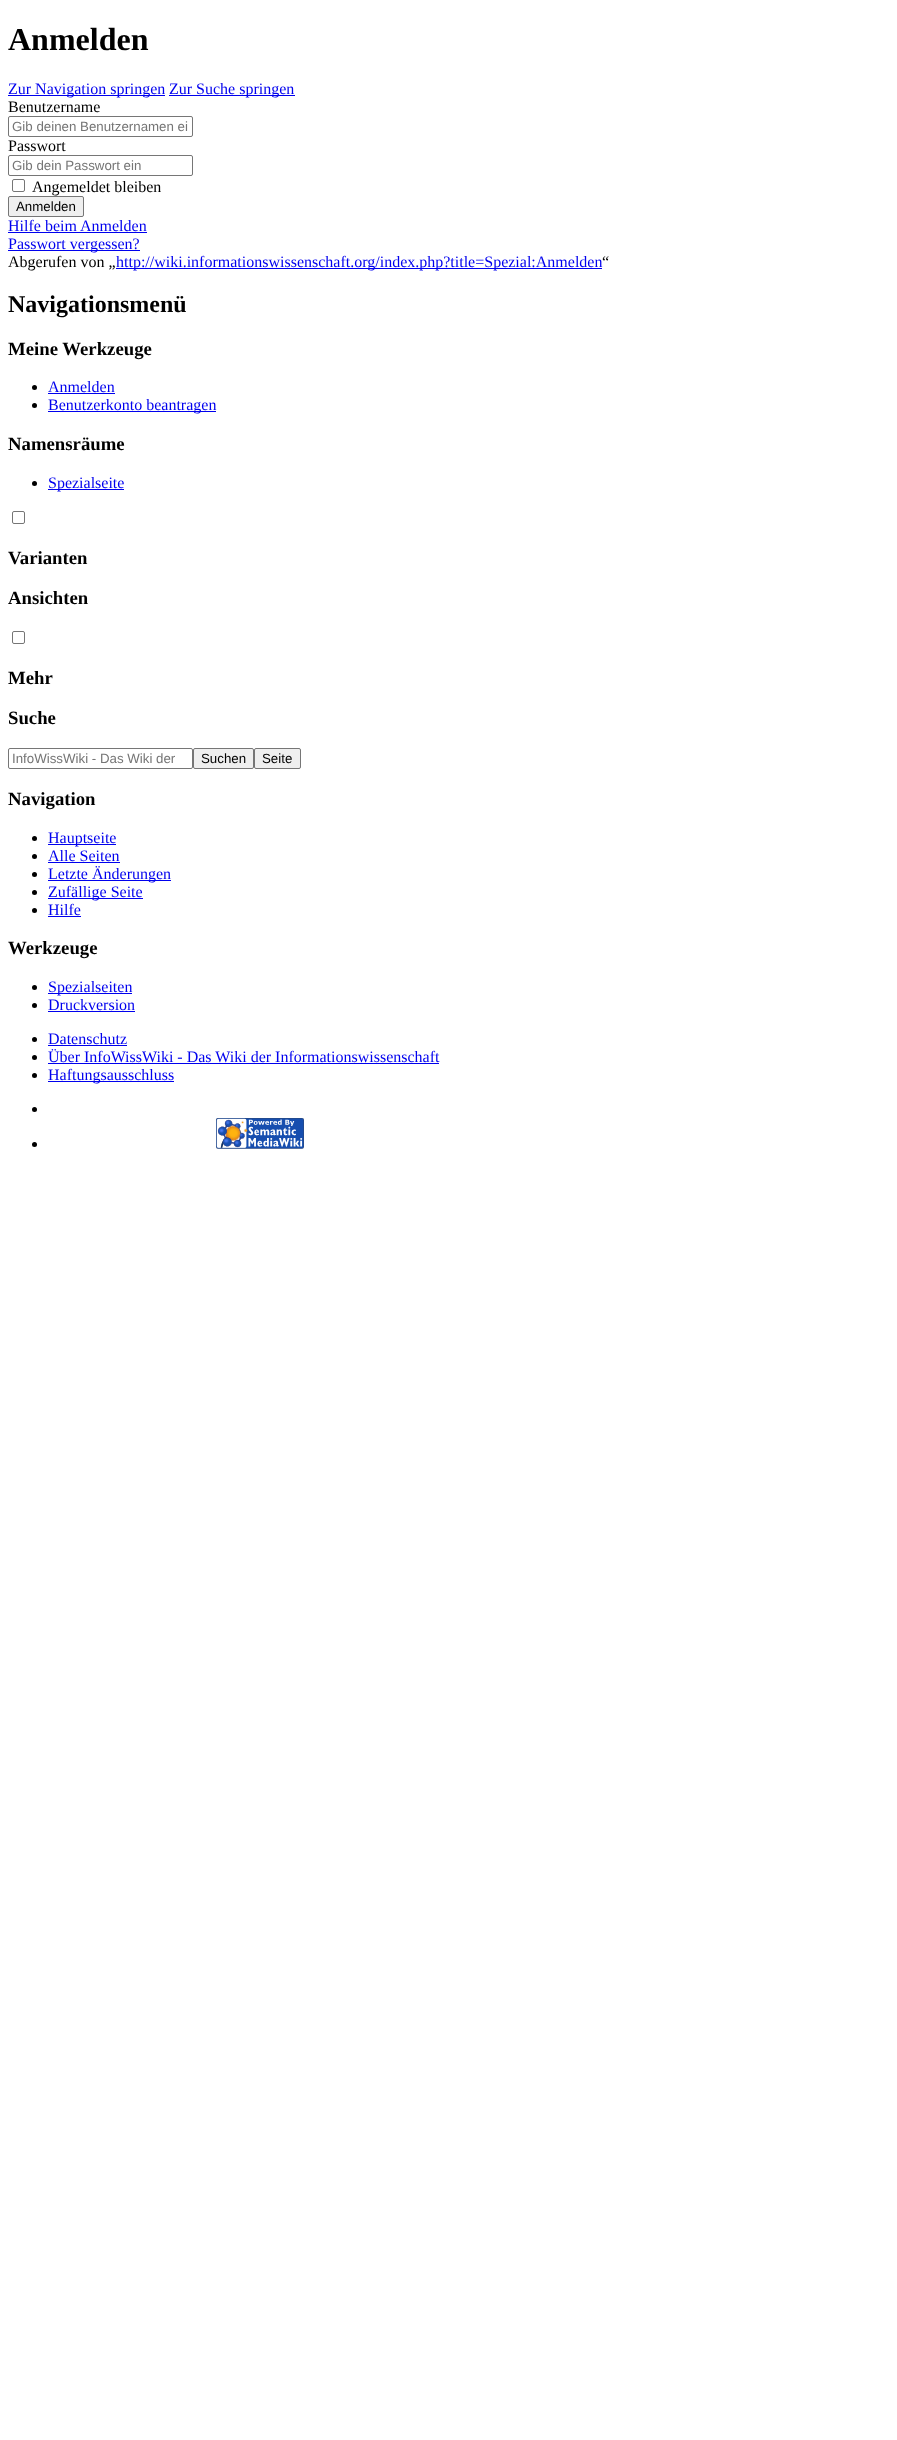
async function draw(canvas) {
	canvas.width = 897;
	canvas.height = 2440;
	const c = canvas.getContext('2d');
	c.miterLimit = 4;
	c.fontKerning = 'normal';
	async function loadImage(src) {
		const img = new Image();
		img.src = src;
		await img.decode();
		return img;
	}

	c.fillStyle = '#fff';
	c.fillRect(0, 0, 897, 2440);
	c.font = 'bold 32px Liberation Serif';
	c.fillStyle = '#000';
	c.fillText('Anmelden', 8, 50);
	c.fillStyle = '#00e';
	c.fillRect(8, 95, 157, 1);
	c.font = '16px Liberation Serif';
	c.fillText('Zur Navigation springen', 8, 94);
	c.fillRect(169, 95, 126, 1);
	c.fillText('Zur Suche springen', 169, 94);
	c.fillStyle = '#000';
	c.fillText('Benutzername', 8, 112);
	c.beginPath();
	c.roundRect(8.5, 116.5, 184, 20, 1.5);
	c.strokeStyle = '#767676';
	c.stroke();
	c.font = '13.3px Liberation Sans';
	c.fillStyle = '#757575';
	c.fillText('Gib deinen Benutzernamen ei', 12, 131);
	c.font = '16px Liberation Serif';
	c.fillStyle = '#000';
	c.fillText('Passwort', 8, 151);
	c.beginPath();
	c.roundRect(8.5, 155.5, 184, 20, 1.5);
	c.stroke();
	c.font = '13.3px Liberation Sans';
	c.fillStyle = '#757575';
	c.fillText('Gib dein Passwort ein', 12, 170);
	c.beginPath();
	c.roundRect(12.5, 179.5, 12, 12, 1.5);
	c.stroke();
	c.font = '16px Liberation Serif';
	c.fillStyle = '#000';
	c.fillText('Angemeldet bleiben', 32, 192);
	c.fillStyle = '#efefef';
	c.beginPath();
	c.roundRect(8.5, 196.5, 75, 20, 1.5);
	c.fill();
	c.stroke();
	c.font = '13.3px Liberation Sans';
	c.fillStyle = '#000';
	c.fillText('Anmelden', 16, 211);
	c.font = '16px Liberation Serif';
	c.fillStyle = '#00e';
	c.fillText('Hilfe beim Anmelden', 8, 231);
	c.fillRect(8, 232, 139, 1);
	c.fillRect(8, 250, 132, 1);
	c.fillText('Passwort vergessen?', 8, 249);
	c.fillStyle = '#000';
	c.fillText('Abgerufen von „', 8, 267);
	c.fillStyle = '#00e';
	c.fillRect(116, 268, 486, 1);
	c.fillText('http://wiki.informationswissenschaft.org/index.php?title=Spezial:Anmelden', 116, 267);
	c.fillStyle = '#000';
	c.fillText('“', 602, 267);
	c.font = 'bold 24px Liberation Serif';
	c.fillText('Navigationsmenü', 8, 312);
	c.font = 'bold 18.75px Liberation Serif';
	c.fillText('Meine Werkzeuge', 8, 355);
	c.beginPath();
	c.arc(34.5, 387.5, 2.5, 0, 2 * Math.PI);
	c.fill();
	c.font = '16px Liberation Serif';
	c.fillStyle = '#00e';
	c.fillText('Anmelden', 48, 392);
	c.fillRect(48, 393, 67, 1);
	c.fillStyle = '#000';
	c.beginPath();
	c.arc(34.5, 405.5, 2.5, 0, 2 * Math.PI);
	c.fill();
	c.fillStyle = '#00e';
	c.fillRect(48, 411, 168, 1);
	c.fillText('Benutzerkonto beantragen', 48, 410);
	c.font = 'bold 18.75px Liberation Serif';
	c.fillStyle = '#000';
	c.fillText('Namensräume', 8, 450);
	c.beginPath();
	c.arc(34.5, 483.5, 2.5, 0, 2 * Math.PI);
	c.fill();
	c.fillStyle = '#00e';
	c.fillRect(48, 489, 76, 1);
	c.font = '16px Liberation Serif';
	c.fillText('Spezialseite', 48, 488);
	c.beginPath();
	c.roundRect(12.5, 511.5, 12, 12, 1.5);
	c.stroke();
	c.font = 'bold 18.75px Liberation Serif';
	c.fillStyle = '#000';
	c.fillText('Varianten', 8, 564);
	c.fillText('Ansichten', 8, 604);
	c.beginPath();
	c.roundRect(12.5, 631.5, 12, 12, 1.5);
	c.stroke();
	c.fillText('Mehr', 8, 684);
	c.fillText('Suche', 8, 724);
	c.beginPath();
	c.roundRect(8.5, 748.5, 184, 20, 1.5);
	c.stroke();
	c.font = '13.3px Liberation Sans';
	c.fillStyle = '#757575';
	c.fillText('InfoWissWiki - Das Wiki der', 12, 763);
	c.fillStyle = '#efefef';
	c.beginPath();
	c.roundRect(193.5, 748.5, 60, 20, 1.5);
	c.fill();
	c.stroke();
	c.fillStyle = '#000';
	c.fillText('Suchen', 201, 763);
	c.fillStyle = '#efefef';
	c.beginPath();
	c.roundRect(254.5, 748.5, 46, 20, 1.5);
	c.fill();
	c.stroke();
	c.fillStyle = '#000';
	c.fillText('Seite', 262, 763);
	c.font = 'bold 18.75px Liberation Serif';
	c.fillText('Navigation', 8, 805);
	c.beginPath();
	c.arc(34.5, 838.5, 2.5, 0, 2 * Math.PI);
	c.fill();
	c.fillStyle = '#00e';
	c.fillRect(48, 844, 68, 1);
	c.font = '16px Liberation Serif';
	c.fillText('Hauptseite', 48, 843);
	c.fillStyle = '#000';
	c.beginPath();
	c.arc(34.5, 856.5, 2.5, 0, 2 * Math.PI);
	c.fill();
	c.fillStyle = '#00e';
	c.fillText('Alle Seiten', 48, 861);
	c.fillRect(48, 862, 72, 1);
	c.fillStyle = '#000';
	c.beginPath();
	c.arc(34.5, 874.5, 2.5, 0, 2 * Math.PI);
	c.fill();
	c.fillStyle = '#00e';
	c.fillRect(48, 880, 123, 1);
	c.fillText('Letzte Änderungen', 48, 879);
	c.fillStyle = '#000';
	c.beginPath();
	c.arc(34.5, 892.5, 2.5, 0, 2 * Math.PI);
	c.fill();
	c.fillStyle = '#00e';
	c.fillRect(48, 898, 95, 1);
	c.fillText('Zufällige Seite', 48, 897);
	c.fillStyle = '#000';
	c.beginPath();
	c.arc(34.5, 910.5, 2.5, 0, 2 * Math.PI);
	c.fill();
	c.fillStyle = '#00e';
	c.fillText('Hilfe', 48, 915);
	c.fillRect(48, 916, 33, 1);
	c.font = 'bold 18.75px Liberation Serif';
	c.fillStyle = '#000';
	c.fillText('Werkzeuge', 8, 954);
	c.beginPath();
	c.arc(34.5, 987.5, 2.5, 0, 2 * Math.PI);
	c.fill();
	c.fillStyle = '#00e';
	c.fillRect(48, 993, 84, 1);
	c.font = '16px Liberation Serif';
	c.fillText('Spezialseiten', 48, 992);
	c.fillStyle = '#000';
	c.beginPath();
	c.arc(34.5, 1005.5, 2.5, 0, 2 * Math.PI);
	c.fill();
	c.fillStyle = '#00e';
	c.fillText('Druckversion', 48, 1010);
	c.fillRect(48, 1011, 87, 1);
	c.fillStyle = '#000';
	c.beginPath();
	c.arc(34.5, 1039.5, 2.5, 0, 2 * Math.PI);
	c.fill();
	c.fillStyle = '#00e';
	c.fillText('Datenschutz', 48, 1044);
	c.fillRect(48, 1045, 79, 1);
	c.fillStyle = '#000';
	c.beginPath();
	c.arc(34.5, 1057.5, 2.5, 0, 2 * Math.PI);
	c.fill();
	c.fillStyle = '#00e';
	c.fillText('Über InfoWissWiki - Das Wiki der Informationswissenschaft', 48, 1062);
	c.fillRect(48, 1063, 391, 1);
	c.fillStyle = '#000';
	c.beginPath();
	c.arc(34.5, 1075.5, 2.5, 0, 2 * Math.PI);
	c.fill();
	c.fillStyle = '#00e';
	c.fillRect(48, 1081, 126, 1);
	c.fillText('Haftungsausschluss', 48, 1080);
	c.fillStyle = '#000';
	c.beginPath();
	c.arc(34.5, 1109.5, 2.5, 0, 2 * Math.PI);
	c.fill();
	c.beginPath();
	c.arc(34.5, 1144.5, 2.5, 0, 2 * Math.PI);
	c.fill();
	c.drawImage(await loadImage('img1.png'), 216, 1118, 88, 31);
}

draw(document.querySelector('canvas'));
